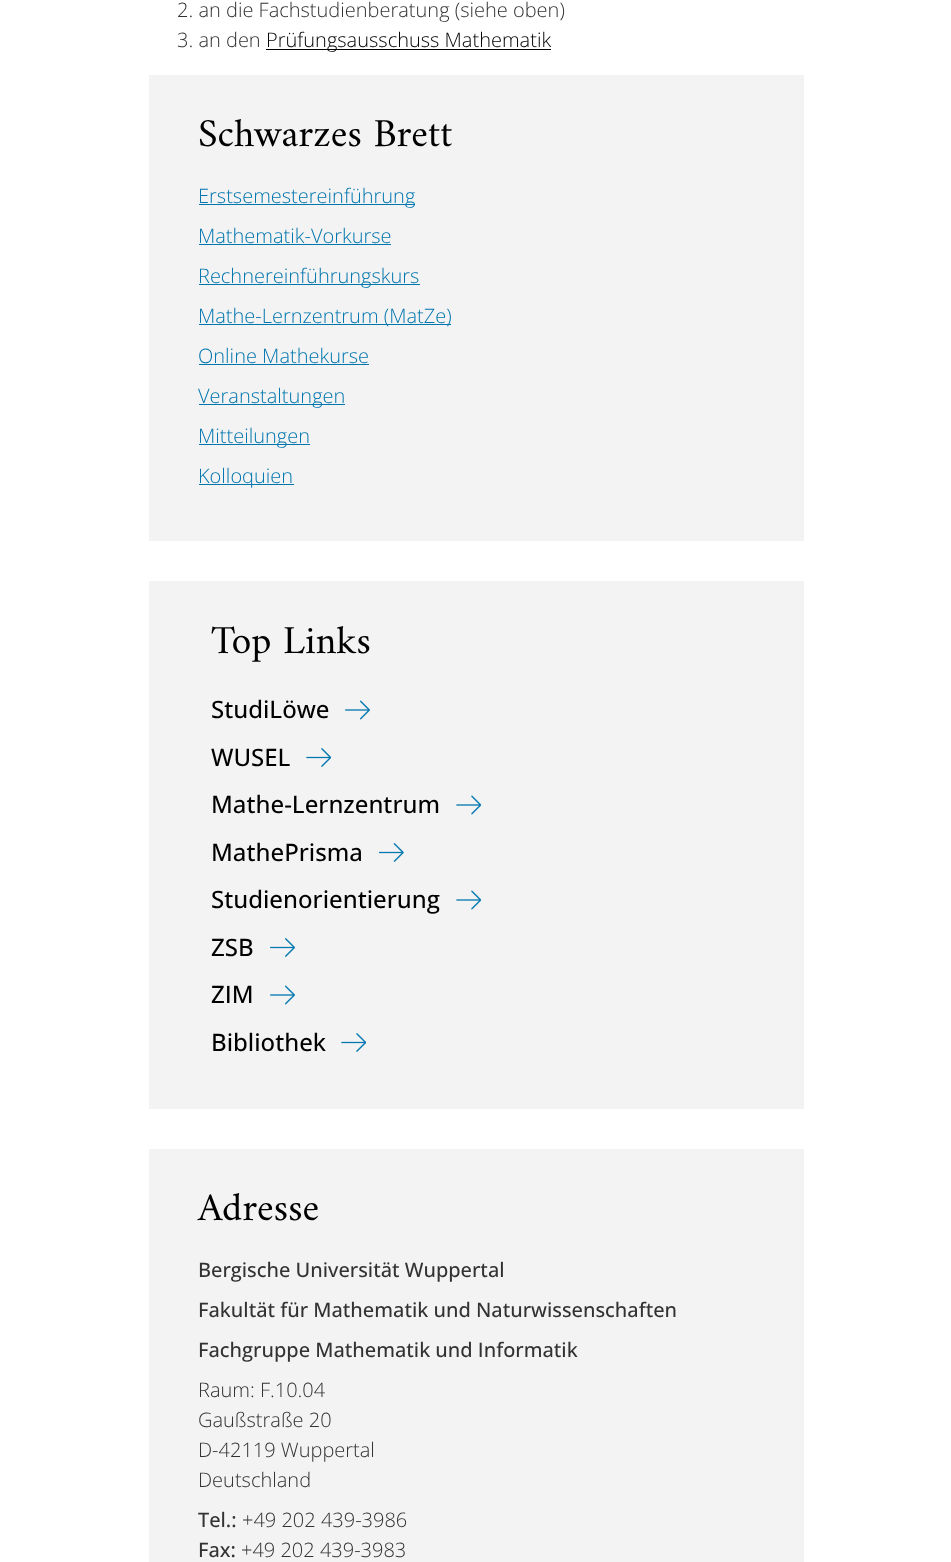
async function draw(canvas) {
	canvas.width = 951;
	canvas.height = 1562;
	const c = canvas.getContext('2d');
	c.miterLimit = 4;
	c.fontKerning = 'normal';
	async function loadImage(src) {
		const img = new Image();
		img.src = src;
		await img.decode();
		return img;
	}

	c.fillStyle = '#fff';
	c.fillRect(0, 0, 951, 1562);
	c.font = '300 20px Open Sans';
	c.fillStyle = '#323232';
	c.fillText('2. an die Fachstudienberatung (siehe oben)', 177, 17);
	c.fillText('3. an den', 177, 47);
	c.fillStyle = '#000';
	c.fillRect(266, 49, 285, 1);
	c.fillText('Prüfungsausschuss Mathematik', 266, 47);
	c.fillStyle = '#f3f3f3';
	c.fillRect(149, 75, 655, 466);
	c.font = '40px Amiri';
	c.fillStyle = '#000';
	c.fillText('Schwarzes Brett', 198, 146);
	c.fillStyle = '#0076af';
	c.fillRect(199, 204, 216, 1);
	c.font = '300 20px Open Sans';
	c.fillText('Erstsemestereinführung', 198, 203);
	c.fillText('Mathematik-Vorkurse', 198, 243);
	c.fillRect(199, 244, 192, 1);
	c.fillRect(199, 284, 221, 1);
	c.fillText('Rechnereinführungskurs', 198, 283);
	c.fillRect(199, 324, 252, 1);
	c.fillText('Mathe-Lernzentrum (MatZe)', 198, 323);
	c.fillText('Online Mathekurse', 198, 363);
	c.fillRect(199, 364, 170, 1);
	c.fillRect(199, 404, 146, 1);
	c.fillText('Veranstaltungen', 198, 403);
	c.fillRect(199, 444, 111, 1);
	c.fillText('Mitteilungen', 198, 443);
	c.fillRect(199, 484, 95, 1);
	c.fillText('Kolloquien', 198, 483);
	c.fillStyle = '#f3f3f3';
	c.fillRect(149, 581, 655, 528);
	c.font = '40px Amiri';
	c.fillStyle = '#000';
	c.fillText('Top Links', 211, 653);
	c.font = '500 24px Open Sans';
	c.fillText('StudiLöwe', 211, 718);
	c.drawImage(await loadImage('img1.png'), 345, 700, 25, 20);
	c.fillText('WUSEL', 211, 766);
	c.drawImage(await loadImage('img2.png'), 306, 748, 25, 19);
	c.fillText('Mathe-Lernzentrum', 211, 813);
	c.drawImage(await loadImage('img3.png'), 456, 795, 25, 20);
	c.fillText('MathePrisma', 211, 861);
	c.drawImage(await loadImage('img4.png'), 379, 843, 25, 19);
	c.fillText('Studienorientierung', 211, 908);
	c.drawImage(await loadImage('img3.png'), 456, 890, 25, 20);
	c.fillText('ZSB', 211, 956);
	c.drawImage(await loadImage('img5.png'), 270, 938, 25, 19);
	c.fillText('ZIM', 211, 1003);
	c.drawImage(await loadImage('img1.png'), 270, 985, 25, 20);
	c.fillText('Bibliothek', 211, 1051);
	c.drawImage(await loadImage('img2.png'), 341, 1033, 25, 19);
	c.fillStyle = '#f3f3f3';
	c.fillRect(149, 1149, 655, 413);
	c.font = '40px Amiri';
	c.fillStyle = '#000';
	c.fillText('Adresse', 198, 1220);
	c.font = '500 20px Open Sans';
	c.fillStyle = '#323232';
	for (const [text, x, y] of [
		['Bergische Universität Wuppertal', 198, 1277],
		['Fakultät für Mathematik und Naturwissenschaften', 198, 1317],
		['Fachgruppe Mathematik und Informatik', 198, 1357],
	]) {
		c.fillText(text, x, y);
	}
	c.font = '300 20px Open Sans';
	for (const [text, x, y] of [
		['Raum: F.10.04', 198, 1397],
		['Gaußstraße 20', 198, 1427],
		['D-42119 Wuppertal', 198, 1457],
		['Deutschland', 198, 1487],
	]) {
		c.fillText(text, x, y);
	}
	c.font = '500 20px Open Sans';
	c.fillText('Tel.:', 198, 1527);
	c.font = '300 20px Open Sans';
	c.fillText('+49 202 439-3986', 242, 1527);
	c.font = '500 20px Open Sans';
	c.fillText('Fax:', 198, 1557);
	c.font = '300 20px Open Sans';
	c.fillText('+49 202 439-3983', 241, 1557);
}

draw(document.querySelector('canvas'));
